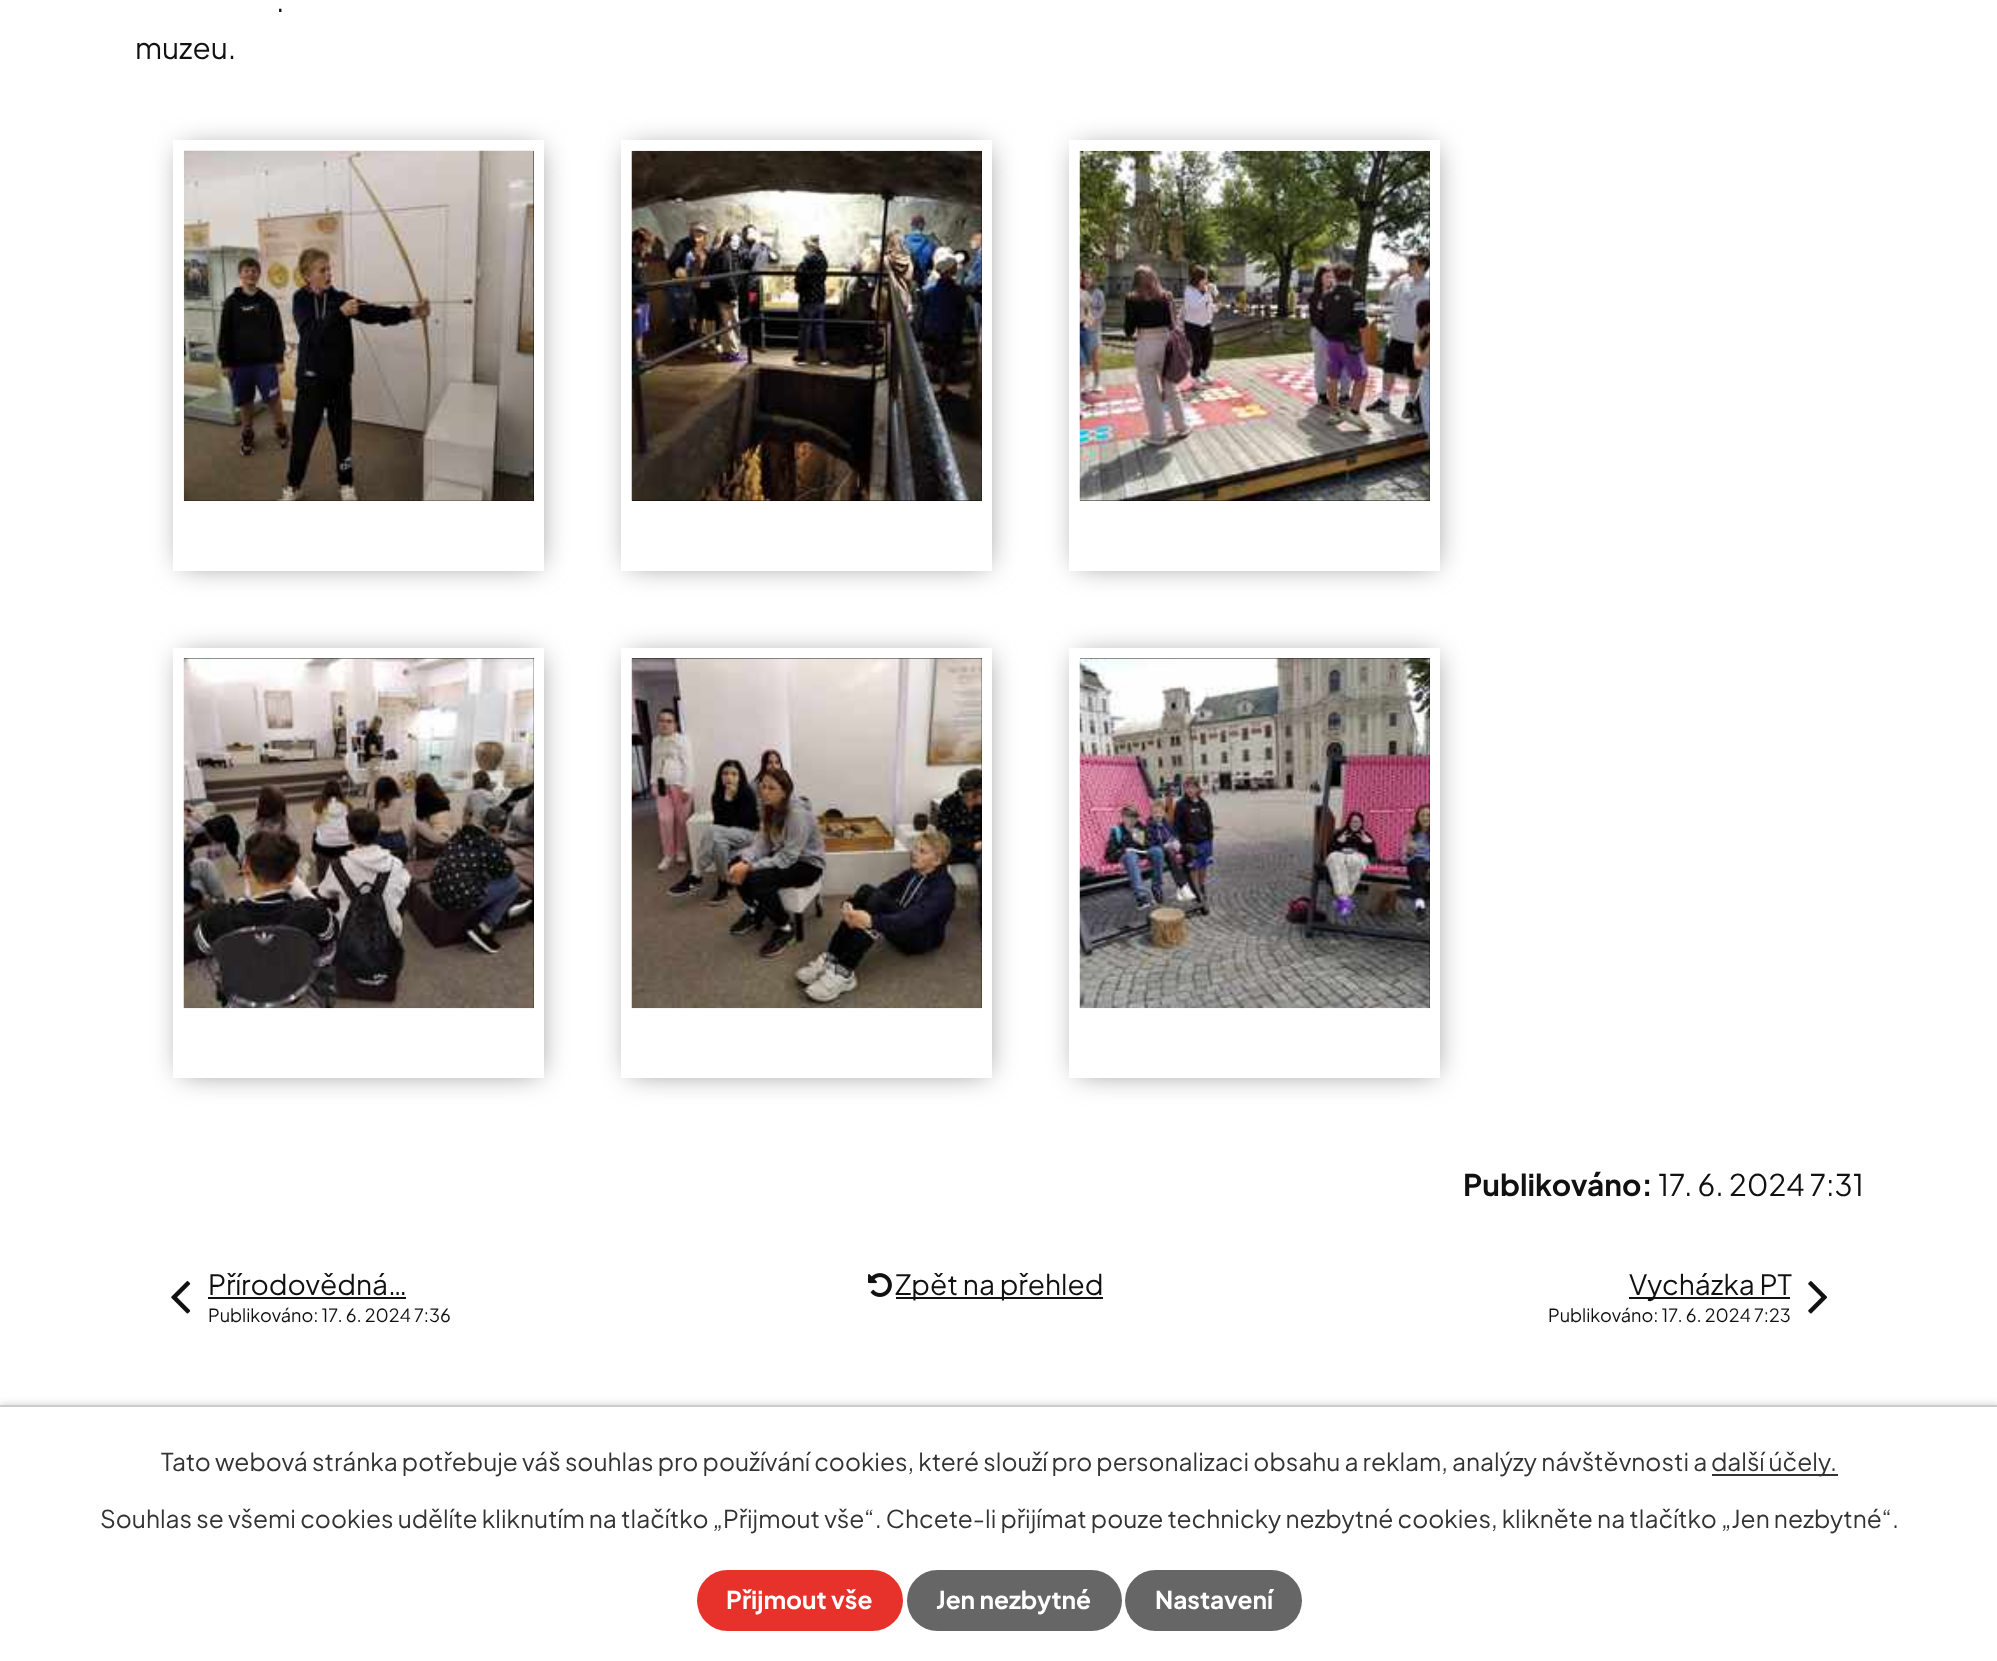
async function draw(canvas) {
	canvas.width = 1997;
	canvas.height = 1661;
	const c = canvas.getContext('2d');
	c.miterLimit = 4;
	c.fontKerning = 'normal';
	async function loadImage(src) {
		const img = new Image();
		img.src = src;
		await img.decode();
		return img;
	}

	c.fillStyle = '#fff';
	c.fillRect(0, 0, 1997, 1661);
	c.font = '29.75px Plus Jakarta Sans';
	c.fillStyle = '#111';
	c.fillText('.', 276, 12);
	c.fillText('muzeu.', 135, 59);
	c.save();
	c.beginPath();
	c.moveTo(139, 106);
	c.lineTo(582, 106);
	c.lineTo(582, 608);
	c.lineTo(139, 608);
	c.closePath();
	c.moveTo(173, 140);
	c.lineTo(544, 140);
	c.lineTo(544, 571);
	c.lineTo(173, 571);
	c.closePath();
	c.clip('evenodd');
	c.fillStyle = '#888';
	c.filter = 'blur(14px)';
	c.beginPath();
	c.rect(182, 149, 357, 416);
	c.fill();
	c.filter = 'none';
	c.restore();
	c.fillStyle = '#000';
	c.fillRect(184, 151, 350, 350);
	c.drawImage(await loadImage('img1.png'), 183, 150, 351, 351);
	c.save();
	c.beginPath();
	c.moveTo(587, 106);
	c.lineTo(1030, 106);
	c.lineTo(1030, 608);
	c.lineTo(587, 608);
	c.closePath();
	c.moveTo(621, 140);
	c.lineTo(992, 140);
	c.lineTo(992, 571);
	c.lineTo(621, 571);
	c.closePath();
	c.clip('evenodd');
	c.fillStyle = '#888';
	c.filter = 'blur(14px)';
	c.beginPath();
	c.rect(630, 149, 357, 416);
	c.fill();
	c.filter = 'none';
	c.restore();
	c.fillRect(632, 151, 350, 350);
	c.drawImage(await loadImage('img2.png'), 631, 150, 351, 351);
	c.save();
	c.beginPath();
	c.moveTo(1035, 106);
	c.lineTo(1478, 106);
	c.lineTo(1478, 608);
	c.lineTo(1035, 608);
	c.closePath();
	c.moveTo(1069, 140);
	c.lineTo(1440, 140);
	c.lineTo(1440, 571);
	c.lineTo(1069, 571);
	c.closePath();
	c.clip('evenodd');
	c.fillStyle = '#888';
	c.filter = 'blur(14px)';
	c.beginPath();
	c.rect(1078, 149, 357, 416);
	c.fill();
	c.filter = 'none';
	c.restore();
	c.fillRect(1080, 151, 350, 350);
	c.drawImage(await loadImage('img3.png'), 1079, 150, 351, 351);
	c.save();
	c.beginPath();
	c.moveTo(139, 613);
	c.lineTo(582, 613);
	c.lineTo(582, 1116);
	c.lineTo(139, 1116);
	c.closePath();
	c.moveTo(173, 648);
	c.lineTo(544, 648);
	c.lineTo(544, 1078);
	c.lineTo(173, 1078);
	c.closePath();
	c.clip('evenodd');
	c.fillStyle = '#888';
	c.filter = 'blur(14px)';
	c.beginPath();
	c.rect(182, 656, 357, 417);
	c.fill();
	c.filter = 'none';
	c.restore();
	c.fillRect(184, 658, 350, 350);
	c.drawImage(await loadImage('img4.png'), 183, 658, 351, 351);
	c.save();
	c.beginPath();
	c.moveTo(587, 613);
	c.lineTo(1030, 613);
	c.lineTo(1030, 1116);
	c.lineTo(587, 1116);
	c.closePath();
	c.moveTo(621, 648);
	c.lineTo(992, 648);
	c.lineTo(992, 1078);
	c.lineTo(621, 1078);
	c.closePath();
	c.clip('evenodd');
	c.fillStyle = '#888';
	c.filter = 'blur(14px)';
	c.beginPath();
	c.rect(630, 656, 357, 417);
	c.fill();
	c.filter = 'none';
	c.restore();
	c.fillRect(632, 658, 350, 350);
	c.drawImage(await loadImage('img5.png'), 631, 658, 351, 351);
	c.save();
	c.beginPath();
	c.moveTo(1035, 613);
	c.lineTo(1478, 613);
	c.lineTo(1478, 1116);
	c.lineTo(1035, 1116);
	c.closePath();
	c.moveTo(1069, 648);
	c.lineTo(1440, 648);
	c.lineTo(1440, 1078);
	c.lineTo(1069, 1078);
	c.closePath();
	c.clip('evenodd');
	c.fillStyle = '#888';
	c.filter = 'blur(14px)';
	c.beginPath();
	c.rect(1078, 656, 357, 417);
	c.fill();
	c.filter = 'none';
	c.restore();
	c.fillRect(1080, 658, 350, 350);
	c.drawImage(await loadImage('img6.png'), 1079, 658, 351, 351);
	c.font = 'bold 29.75px Plus Jakarta Sans';
	c.fillStyle = '#111';
	c.fillText('Publikováno:', 1463, 1196);
	c.font = '29.75px Plus Jakarta Sans';
	c.fillText('17. 6. 2024 7:31', 1658, 1196);
	c.drawImage(await loadImage('img7.png'), 171, 1281, 20, 33);
	c.font = '28px Plus Jakarta Sans';
	c.fillText('Přírodovědná…', 208, 1295);
	c.fillRect(208, 1297, 198, 2);
	c.font = '18.1px Plus Jakarta Sans';
	c.fillText('Publikováno: 17. 6. 2024 7:36', 208, 1322);
	c.drawImage(await loadImage('img8.png'), 868, 1273, 24, 24);
	c.fillRect(896, 1297, 207, 2);
	c.font = '28px Plus Jakarta Sans';
	c.fillText('Zpět na přehled', 895, 1295);
	c.fillRect(1629, 1297, 161, 2);
	c.fillText('Vycházka PT', 1629, 1295);
	c.font = '18.1px Plus Jakarta Sans';
	c.fillText('Publikováno: 17. 6. 2024 7:23', 1548, 1322);
	c.drawImage(await loadImage('img9.png'), 1808, 1281, 20, 33);
	c.fillStyle = '#00000033';
	c.filter = 'blur(4.5px)';
	c.beginPath();
	c.rect(0, 1405, 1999, 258);
	c.fill();
	c.filter = 'none';
	c.fillStyle = '#fff';
	c.fillRect(0, 1407, 1997, 254);
	c.fillStyle = '#ccc';
	c.fillRect(0, 1405, 1997, 2);
	c.font = '24.5px Plus Jakarta Sans';
	c.fillStyle = '#333';
	c.fillText('Tato webová stránka potřebuje váš souhlas pro používání cookies, které slouží pro personalizaci obsahu a reklam, analýzy návštěvnosti a', 161, 1471);
	c.fillRect(1712, 1474, 126, 2);
	c.fillText('další účely.', 1711, 1471);
	c.fillText('Souhlas se všemi cookies udělíte kliknutím na tlačítko „Přijmout vše“. Chcete-li přijímat pouze technicky nezbytné cookies, klikněte na tlačítko „Jen nezbytné“.', 100, 1528);
	c.fillStyle = '#e6322a';
	c.beginPath();
	c.roundRect(697, 1570, 206, 61, 30.5);
	c.fill();
	c.font = 'bold 24.5px Plus Jakarta Sans';
	c.fillStyle = '#fff';
	c.fillText('Přijmout vše', 726, 1609);
	c.fillStyle = '#666';
	c.beginPath();
	c.roundRect(907, 1570, 215, 61, 30.5);
	c.fill();
	c.fillStyle = '#fff';
	c.fillText('Jen nezbytné', 936, 1609);
	c.fillStyle = '#666';
	c.beginPath();
	c.roundRect(1125, 1570, 177, 61, 30.5);
	c.fill();
	c.fillStyle = '#fff';
	c.fillText('Nastavení', 1155, 1609);
}

draw(document.querySelector('canvas'));
